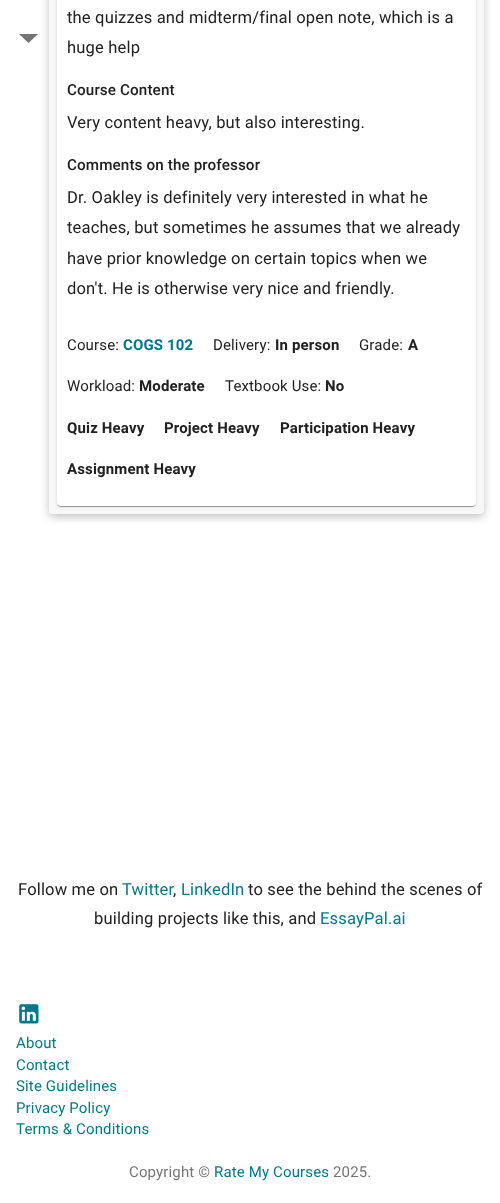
async function draw(canvas) {
	canvas.width = 500;
	canvas.height = 1203;
	const c = canvas.getContext('2d');
	c.miterLimit = 4;
	c.fontKerning = 'normal';
	async function loadImage(src) {
		const img = new Image();
		img.src = src;
		await img.decode();
		return img;
	}

	c.fillStyle = '#fff';
	c.fillRect(0, 0, 500, 1203);
	c.fillStyle = '#0000003d';
	c.filter = 'blur(4px)';
	c.beginPath();
	c.roundRect(49, -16, 435, 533, 4);
	c.fill();
	c.filter = 'none';
	c.fillStyle = '#757575';
	c.beginPath();
	c.moveTo(19, 34);
	c.lineTo(28.5, 43);
	c.lineTo(38, 34);
	c.closePath();
	c.fill();
	c.fillStyle = '#f7f7f7';
	c.beginPath();
	c.roundRect(49, -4, 435, 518, 4);
	c.fill();
	c.fillStyle = '#0000001f';
	c.filter = 'blur(1.5px)';
	c.beginPath();
	c.roundRect(57, -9, 419, 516, 4);
	c.fill();
	c.filter = 'none';
	c.fillStyle = '#00000024';
	c.filter = 'blur(0.5px)';
	c.beginPath();
	c.roundRect(57, -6, 419, 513, 4);
	c.fill();
	c.filter = 'none';
	c.fillStyle = '#00000033';
	c.filter = 'blur(0.5px)';
	c.beginPath();
	c.roundRect(58, -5, 417, 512, 3);
	c.fill();
	c.filter = 'none';
	c.fillStyle = '#fff';
	c.beginPath();
	c.roundRect(57, -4, 419, 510, 4);
	c.fill();
	c.letterSpacing = '0.15px';
	c.font = '16.6px Roboto';
	c.fillStyle = '#212121';
	c.fillText('the quizzes and midterm/final open note, which is a', 67, 23);
	c.fillText('huge help', 67, 53);
	c.letterSpacing = '0.1px';
	c.font = '500 15.25px Roboto';
	c.fillText('Course Content', 67, 95);
	c.letterSpacing = '0.15px';
	c.font = '16.6px Roboto';
	c.fillText('Very content heavy, but also interesting.', 67, 128);
	c.letterSpacing = '0.1px';
	c.font = '500 15.25px Roboto';
	c.fillText('Comments on the professor', 67, 170);
	c.letterSpacing = '0.15px';
	c.font = '16.6px Roboto';
	for (const [text, x, y] of [
		['Dr. Oakley is definitely very interested in what he', 67, 203],
		['teaches, but sometimes he assumes that we already', 67, 233],
		['have prior knowledge on certain topics when we', 67, 264],
		['don\'t. He is otherwise very nice and friendly.', 67, 294],
	]) {
		c.fillText(text, x, y);
	}
	c.font = '15px Roboto';
	c.fillText('Course:', 67, 350);
	c.font = 'bold 15px Roboto';
	c.fillStyle = '#02798b';
	c.fillText('COGS 102', 123, 350);
	c.font = '15px Roboto';
	c.fillStyle = '#212121';
	c.fillText('Delivery:', 213, 350);
	c.font = 'bold 15px Roboto';
	c.fillText('In person', 275, 350);
	c.font = '15px Roboto';
	c.fillText('Grade:', 359, 350);
	c.font = 'bold 15px Roboto';
	c.fillText('A', 408, 350);
	c.font = '15px Roboto';
	c.fillText('Workload:', 67, 391);
	c.font = 'bold 15px Roboto';
	c.fillText('Moderate', 139, 391);
	c.font = '15px Roboto';
	c.fillText('Textbook Use:', 225, 391);
	c.font = 'bold 15px Roboto';
	for (const [text, x, y] of [
		['No', 325, 391],
		['Quiz Heavy', 67, 433],
		['Project Heavy', 164, 433],
		['Participation Heavy', 280, 433],
		['Assignment Heavy', 67, 474],
	]) {
		c.fillText(text, x, y);
	}
	c.font = '16.6px Roboto';
	c.fillText('Follow me on', 18, 895);
	c.fillStyle = '#02798b';
	c.fillText('Twitter', 122, 895);
	c.fillStyle = '#212121';
	c.fillText(',', 173, 895);
	c.fillStyle = '#02798b';
	c.fillText('LinkedIn', 181, 895);
	c.fillStyle = '#212121';
	c.fillText('to see the behind the scenes of', 248, 895);
	c.fillText('building projects like this, and', 94, 924);
	c.fillStyle = '#02798b';
	c.fillText('EssayPal.ai', 320, 924);
	c.drawImage(await loadImage('img1.png'), 19, 1004, 20, 20);
	c.font = '15px Roboto';
	for (const [text, x, y] of [
		['About', 16, 1048],
		['Contact', 16, 1070],
		['Site Guidelines', 16, 1091],
		['Privacy Policy', 16, 1113],
		['Terms & Conditions', 16, 1134],
	]) {
		c.fillText(text, x, y);
	}
	c.fillStyle = '#757575';
	c.fillText('Copyright ©', 129, 1177);
	c.fillStyle = '#02798b';
	c.fillText('Rate My Courses', 214, 1177);
	c.fillStyle = '#757575';
	c.fillText('2025.', 333, 1177);
}

draw(document.querySelector('canvas'));
